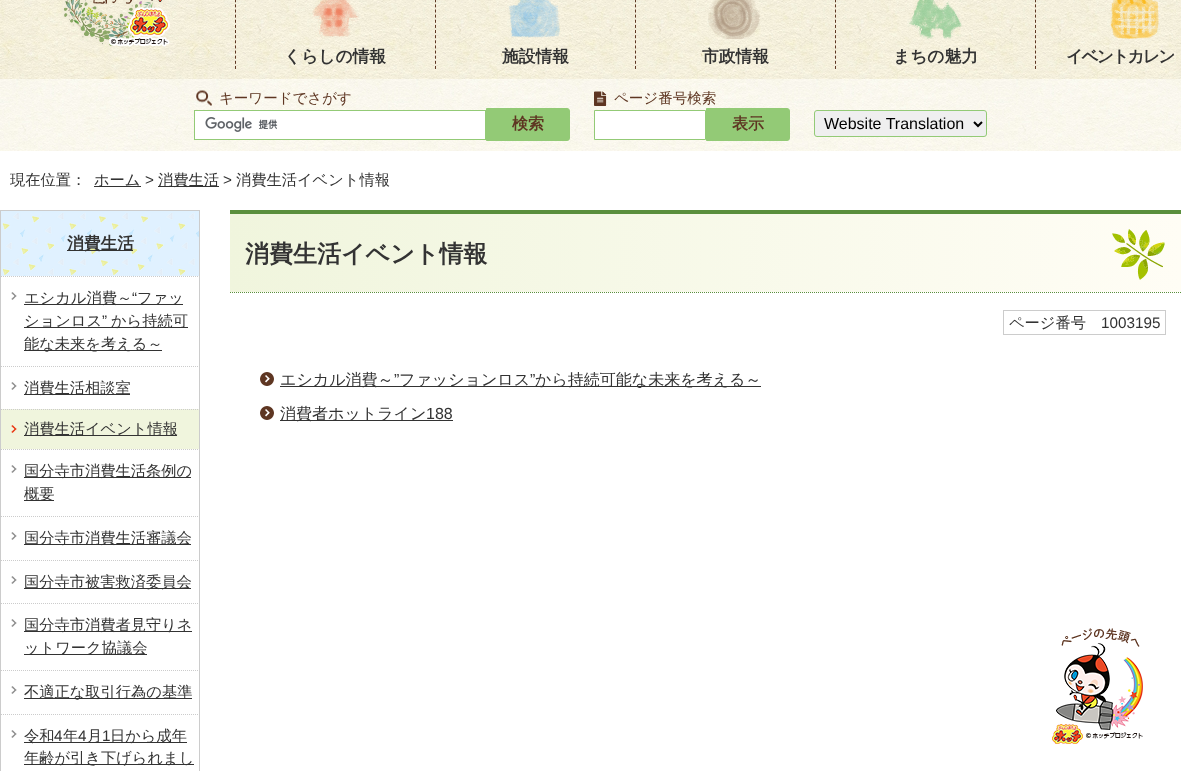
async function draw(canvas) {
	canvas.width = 1181;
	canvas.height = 771;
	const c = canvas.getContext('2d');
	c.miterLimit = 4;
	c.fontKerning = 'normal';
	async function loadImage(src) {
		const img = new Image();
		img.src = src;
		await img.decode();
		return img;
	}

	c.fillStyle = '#fff';
	c.fillRect(0, 0, 1181, 771);
	c.drawImage(await loadImage('img1.png'), 0, 0, 1181, 79);
	c.drawImage(await loadImage('img2.png'), 62, 0, 108, 48);
	c.drawImage(await loadImage('img3.png'), 235, 0, 941, 79);
	c.beginPath();
	c.moveTo(235.5, -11);
	c.lineTo(235.5, 69);
	c.strokeStyle = '#5e3622';
	c.setLineDash([3, 2.13]);
	c.stroke();
	c.drawImage(await loadImage('img4.png'), 312, 0, 47, 39);
	c.font = 'bold 16.75px WenQuanYi Zen Hei';
	c.fillStyle = '#333';
	c.fillText('くらしの情報', 284, 62);
	c.beginPath();
	c.moveTo(435.5, -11);
	c.lineTo(435.5, 69);
	c.stroke();
	c.drawImage(await loadImage('img5.png'), 508, 0, 53, 38);
	c.fillText('施設情報', 502, 62);
	c.beginPath();
	c.moveTo(635.5, -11);
	c.lineTo(635.5, 69);
	c.stroke();
	c.drawImage(await loadImage('img6.png'), 708, 0, 53, 39);
	c.fillText('市政情報', 702, 62);
	c.beginPath();
	c.moveTo(835.5, -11);
	c.lineTo(835.5, 69);
	c.stroke();
	c.drawImage(await loadImage('img7.png'), 908, 0, 54, 39);
	c.fillText('まちの魅力', 893, 62);
	c.beginPath();
	c.moveTo(1035.5, -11);
	c.lineTo(1035.5, 69);
	c.stroke();
	c.drawImage(await loadImage('img8.png'), 1110, 0, 49, 39);
	c.letterSpacing = '-1.75px';
	c.fillText('イベントカレン', 1066, 62);
	c.drawImage(await loadImage('img9.png'), 0, 79, 1181, 72);
	c.drawImage(await loadImage('img10.png'), 196, 90, 16, 16);
	c.letterSpacing = '0px';
	c.font = '500 14.5px WenQuanYi Zen Hei';
	c.fillStyle = '#5e3622';
	c.fillText('キーワードでさがす', 219, 103);
	c.fillStyle = '#fff';
	c.fillRect(195, 111, 290, 28);
	c.drawImage(await loadImage('img11.png'), 205, 117, 73, 15);
	c.strokeStyle = '#93ca76';
	c.setLineDash([]);
	c.strokeRect(194.5, 110.5, 291, 29);
	c.fillStyle = '#93ca76';
	c.beginPath();
	c.roundRect(486.5, 108.5, 83, 32, [0, 2.5, 2.5, 0]);
	c.fill();
	c.stroke();
	c.font = 'bold 16px WenQuanYi Zen Hei';
	c.fillStyle = '#5e3622';
	c.fillText('検索', 512, 129);
	c.drawImage(await loadImage('img12.png'), 594, 91, 13, 15);
	c.font = '500 14.5px WenQuanYi Zen Hei';
	c.fillText('ページ番号検索', 614, 103);
	c.fillStyle = '#fff';
	c.beginPath();
	c.rect(594.5, 110.5, 111, 29);
	c.fill();
	c.stroke();
	c.fillStyle = '#93ca76';
	c.beginPath();
	c.roundRect(706.5, 108.5, 83, 32, [0, 2.5, 2.5, 0]);
	c.fill();
	c.stroke();
	c.font = 'bold 16px WenQuanYi Zen Hei';
	c.fillStyle = '#5e3622';
	c.fillText('表示', 732, 129);
	c.fillStyle = '#efefef';
	c.beginPath();
	c.roundRect(814.5, 110.5, 172, 26, 2.5);
	c.fill();
	c.stroke();
	c.beginPath();
	c.moveTo(974, 122);
	c.lineTo(978, 126);
	c.lineTo(982, 122);
	c.strokeStyle = '#000';
	c.lineWidth = 2;
	c.stroke();
	c.font = '16px Liberation Sans';
	c.fillStyle = '#000';
	c.fillText('Website Translation', 824, 129);
	c.font = '500 15.25px WenQuanYi Zen Hei';
	c.fillStyle = '#333';
	c.fillText('現在位置：', 10, 185);
	c.fillRect(94, 186, 47, 1);
	c.fillText('ホーム', 94, 185);
	c.font = '15.25px Liberation Sans';
	c.fillText('>', 145, 185);
	c.fillRect(158, 186, 61, 1);
	c.font = '500 15.25px WenQuanYi Zen Hei';
	c.fillText('消費生活', 158, 185);
	c.font = '15.25px Liberation Sans';
	c.fillText('>', 223, 185);
	c.font = '500 15.25px WenQuanYi Zen Hei';
	c.fillText('消費生活イベント情報', 236, 185);
	c.strokeStyle = '#ccc';
	c.lineWidth = 1;
	c.strokeRect(0.5, 210.5, 199, 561);
	c.fillStyle = '#dff1ff';
	c.fillRect(1, 211, 198, 65);
	c.drawImage(await loadImage('img13.png'), 2, 213, 197, 63);
	c.fillStyle = '#333';
	c.fillRect(67, 250, 66, 1);
	c.font = 'bold 16.75px WenQuanYi Zen Hei';
	c.fillText('消費生活', 67, 249);
	c.drawImage(await loadImage('img14.png'), 11, 292, 6, 8);
	c.beginPath();
	c.moveTo(1, 276.5);
	c.lineTo(199, 276.5);
	c.setLineDash([1, 1]);
	c.stroke();
	c.fillRect(24, 304, 159, 1);
	c.font = '500 15.25px WenQuanYi Zen Hei';
	c.fillText('エシカル消費～', 24, 303);
	c.font = '15.25px Liberation Sans';
	c.fillText('“', 132, 303);
	c.font = '500 15.25px WenQuanYi Zen Hei';
	c.fillText('ファッ', 137, 303);
	c.fillRect(24, 327, 164, 1);
	c.fillText('ションロス', 24, 326);
	c.font = '15.25px Liberation Sans';
	c.fillText('”', 102, 326);
	c.font = '500 15.25px WenQuanYi Zen Hei';
	c.fillText('から持続可', 111, 326);
	c.fillRect(24, 350, 138, 1);
	c.fillText('能な未来を考える～', 24, 349);
	c.drawImage(await loadImage('img14.png'), 11, 382, 6, 8);
	c.beginPath();
	c.moveTo(1, 366.5);
	c.lineTo(199, 366.5);
	c.stroke();
	c.fillRect(24, 394, 106, 1);
	c.fillText('消費生活相談室', 24, 393);
	c.fillStyle = '#f0f5dd';
	c.fillRect(1, 409, 198, 40);
	c.drawImage(await loadImage('img15.png'), 11, 425, 6, 8);
	c.beginPath();
	c.moveTo(1, 409.5);
	c.lineTo(199, 409.5);
	c.stroke();
	c.fillStyle = '#333';
	c.fillRect(24, 435, 153, 1);
	c.fillText('消費生活イベント情報', 24, 434);
	c.drawImage(await loadImage('img14.png'), 11, 465, 6, 8);
	c.beginPath();
	c.moveTo(1, 449.5);
	c.lineTo(199, 449.5);
	c.stroke();
	c.fillRect(24, 477, 167, 1);
	c.fillText('国分寺市消費生活条例の', 24, 476);
	c.fillRect(24, 500, 30, 1);
	c.fillText('概要', 24, 499);
	c.drawImage(await loadImage('img14.png'), 11, 532, 6, 8);
	c.beginPath();
	c.moveTo(1, 516.5);
	c.lineTo(199, 516.5);
	c.stroke();
	c.fillRect(24, 544, 167, 1);
	c.fillText('国分寺市消費生活審議会', 24, 543);
	c.drawImage(await loadImage('img14.png'), 11, 576, 6, 8);
	c.beginPath();
	c.moveTo(1, 560.5);
	c.lineTo(199, 560.5);
	c.stroke();
	c.fillRect(24, 588, 167, 1);
	c.fillText('国分寺市被害救済委員会', 24, 587);
	c.drawImage(await loadImage('img14.png'), 11, 619, 6, 8);
	c.beginPath();
	c.moveTo(1, 603.5);
	c.lineTo(199, 603.5);
	c.stroke();
	c.fillRect(24, 631, 168, 1);
	c.fillText('国分寺市消費者見守りネ', 24, 630);
	c.fillRect(24, 654, 123, 1);
	c.fillText('ットワーク協議会', 24, 653);
	c.drawImage(await loadImage('img14.png'), 11, 686, 6, 8);
	c.beginPath();
	c.moveTo(1, 670.5);
	c.lineTo(199, 670.5);
	c.stroke();
	c.fillRect(24, 698, 168, 1);
	c.fillText('不適正な取引行為の基準', 24, 697);
	c.drawImage(await loadImage('img14.png'), 11, 730, 6, 8);
	c.beginPath();
	c.moveTo(1, 714.5);
	c.lineTo(199, 714.5);
	c.stroke();
	c.fillRect(24, 742, 163, 1);
	c.fillText('令和', 24, 741);
	c.font = '15.25px Liberation Sans';
	c.fillText('4', 54, 741);
	c.font = '500 15.25px WenQuanYi Zen Hei';
	c.fillText('年', 63, 741);
	c.font = '15.25px Liberation Sans';
	c.fillText('4', 78, 741);
	c.font = '500 15.25px WenQuanYi Zen Hei';
	c.fillText('月', 87, 741);
	c.font = '15.25px Liberation Sans';
	c.fillText('1', 102, 741);
	c.font = '500 15.25px WenQuanYi Zen Hei';
	c.fillText('日から成年', 110, 741);
	c.fillRect(24, 764, 170, 1);
	c.fillText('年齢が引き下げられまし', 24, 763);
	c.drawImage(await loadImage('img16.png'), 230, 214, 951, 78);
	c.fillStyle = '#5a8f3d';
	c.fillRect(230, 210, 951, 4);
	c.beginPath();
	c.moveTo(230, 292.5);
	c.lineTo(1181, 292.5);
	c.strokeStyle = '#5a8f3d';
	c.stroke();
	c.font = 'bold 24px WenQuanYi Zen Hei';
	c.fillStyle = '#333';
	c.fillText('消費生活イベント情報', 245, 262);
	c.strokeStyle = '#ccc';
	c.setLineDash([]);
	c.strokeRect(1003.5, 310.5, 162, 24);
	c.font = '500 15.25px WenQuanYi Zen Hei';
	c.fillText('ページ番号', 1009, 328);
	c.font = '15.25px Liberation Sans';
	c.fillText('1003195', 1101, 328);
	c.drawImage(await loadImage('img17.png'), 260, 372, 14, 14);
	c.fillRect(280, 386, 481, 1);
	c.font = '500 16px WenQuanYi Zen Hei';
	c.fillText('エシカル消費～', 280, 385);
	c.font = '16px Liberation Sans';
	c.fillText('”', 394, 385);
	c.font = '500 16px WenQuanYi Zen Hei';
	c.fillText('ファッションロス', 399, 385);
	c.font = '16px Liberation Sans';
	c.fillText('”', 530, 385);
	c.font = '500 16px WenQuanYi Zen Hei';
	c.fillText('から持続可能な未来を考える～', 535, 385);
	c.drawImage(await loadImage('img17.png'), 260, 406, 14, 14);
	c.fillRect(280, 420, 173, 1);
	c.fillText('消費者ホットライン', 280, 419);
	c.font = '16px Liberation Sans';
	c.fillText('188', 426, 419);
	c.drawImage(await loadImage('img18.png'), 1052, 628, 91, 116);
}

draw(document.querySelector('canvas'));
